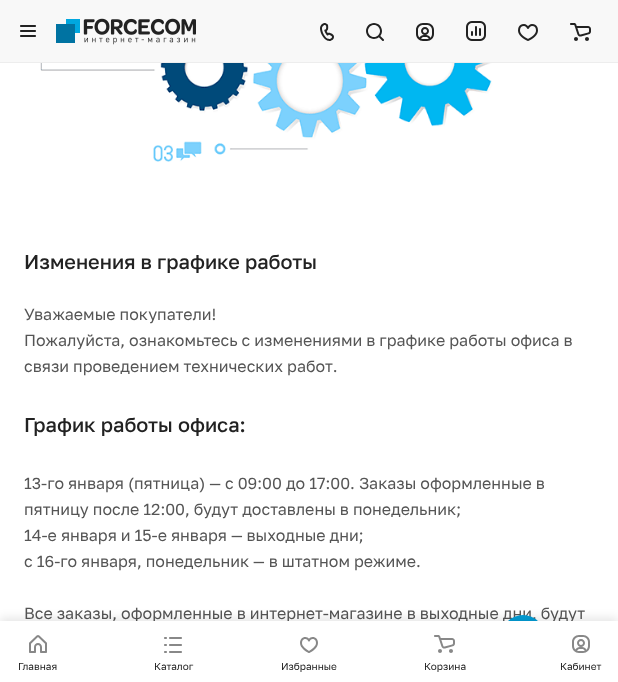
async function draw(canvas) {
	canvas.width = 618;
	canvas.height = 682;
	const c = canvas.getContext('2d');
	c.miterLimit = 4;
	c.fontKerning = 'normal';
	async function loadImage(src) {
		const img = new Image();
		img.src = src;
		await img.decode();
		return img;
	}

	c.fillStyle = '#fff';
	c.fillRect(0, 0, 618, 682);
	c.fillStyle = '#ededed';
	c.fillRect(0, 62, 618, 1);
	c.fillStyle = '#f8f8f8';
	c.fillRect(0, 0, 618, 62);
	c.drawImage(await loadImage('img1.png'), 20, 25, 16, 12);
	c.drawImage(await loadImage('img2.png'), 56, 18, 140, 27);
	c.drawImage(await loadImage('img3.png'), 320, 23, 14, 18);
	c.drawImage(await loadImage('img4.png'), 366, 23, 18, 18);
	c.drawImage(await loadImage('img5.png'), 416, 23, 18, 18);
	c.drawImage(await loadImage('img6.png'), 466, 21, 20, 20);
	c.drawImage(await loadImage('img7.png'), 518, 24, 20, 17);
	c.drawImage(await loadImage('img8.png'), 570, 23, 21, 18);
	c.drawImage(await loadImage('img9.png'), 40, 63, 538, 99);
	c.font = '500 20px Golos Text';
	c.fillStyle = '#222';
	c.fillText('Изменения в графике работы', 24, 269);
	c.font = '16px Golos Text';
	c.fillStyle = '#555';
	for (const [text, x, y] of [
		['Уважаемые покупатели!', 24, 320],
		['Пожалуйста, ознакомьтесь с изменениями в графике работы офиса в', 24, 346],
		['связи проведением технических работ.', 24, 372],
	]) {
		c.fillText(text, x, y);
	}
	c.font = '500 20px Golos Text';
	c.fillStyle = '#222';
	c.fillText('График работы офиса:', 24, 432);
	c.font = '16px Golos Text';
	c.fillStyle = '#555';
	for (const [text, x, y] of [
		['13-го января (пятница) — с 09:00 до 17:00. Заказы оформленные в', 24, 489],
		['пятницу после 12:00, будут доставлены в понедельник;', 24, 515],
		['14-е января и 15-е января — выходные дни;', 24, 541],
		['с 16-го января, понедельник — в штатном режиме.', 24, 567],
		['Все заказы, оформленные в интернет-магазине в выходные дни, будут', 24, 619],
	]) {
		c.fillText(text, x, y);
	}
	c.fillStyle = '#039ed7';
	c.beginPath();
	c.arc(523, 637, 22, 0, 2 * Math.PI);
	c.fill();
	c.fillStyle = '#0000001a';
	c.filter = 'blur(5px)';
	c.beginPath();
	c.rect(0, 618, 618, 61);
	c.fill();
	c.filter = 'none';
	c.fillStyle = '#fff';
	c.fillRect(0, 621, 618, 61);
	c.drawImage(await loadImage('img10.png'), 29, 635, 18, 18);
	c.font = '10px Golos Text';
	c.fillStyle = '#222';
	c.fillText('Главная', 18, 670);
	c.drawImage(await loadImage('img11.png'), 164, 637, 18, 16);
	c.fillText('Каталог', 154, 670);
	c.drawImage(await loadImage('img12.png'), 300, 637, 18, 16);
	c.fillText('Избранные', 281, 670);
	c.drawImage(await loadImage('img13.png'), 434, 635, 21, 18);
	c.fillText('Корзина', 424, 670);
	c.drawImage(await loadImage('img14.png'), 572, 635, 18, 18);
	c.fillText('Кабинет', 560, 670);
}

draw(document.querySelector('canvas'));
